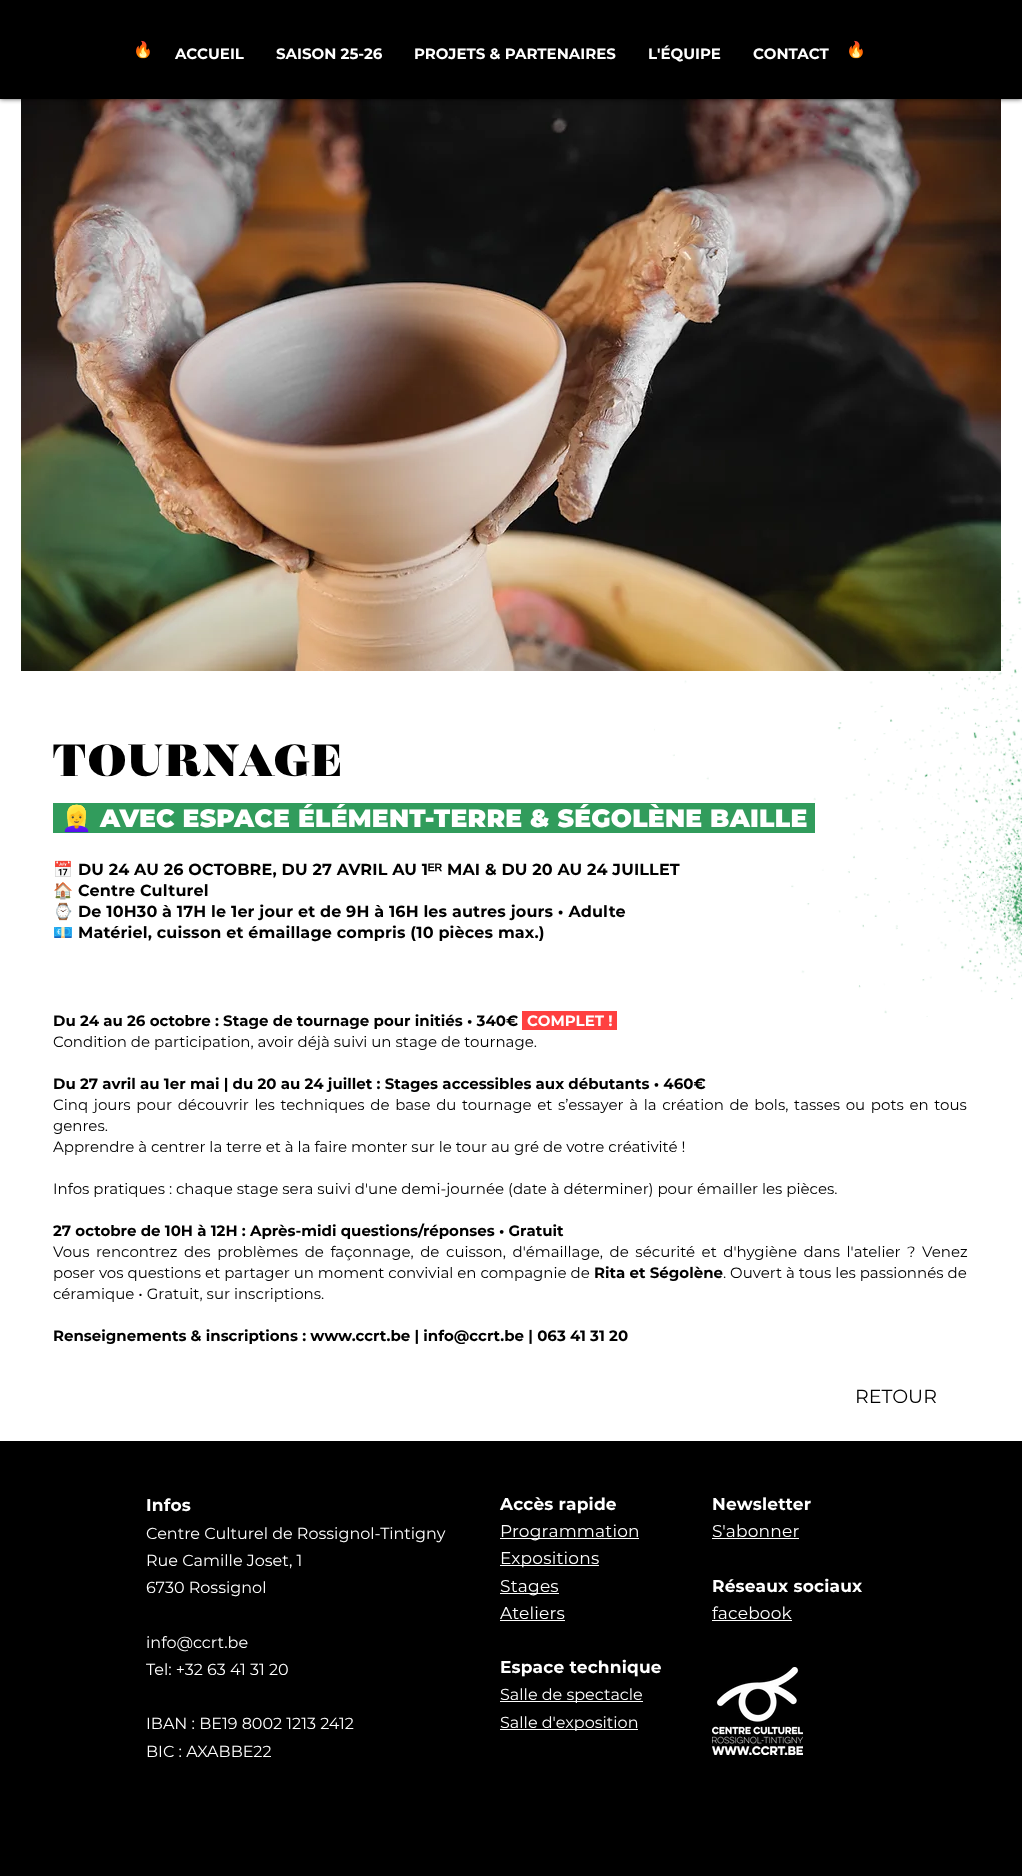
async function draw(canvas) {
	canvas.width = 1022;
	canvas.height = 1876;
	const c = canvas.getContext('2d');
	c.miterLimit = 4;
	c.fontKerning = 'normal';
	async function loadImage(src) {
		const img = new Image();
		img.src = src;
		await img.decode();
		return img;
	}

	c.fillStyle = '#000';
	c.fillRect(0, 0, 1022, 1876);
	c.fillStyle = '#fff';
	c.fillRect(0, 99, 1022, 1342);
	c.drawImage(await loadImage('img2.png'), 654, 563, 368, 454);
	c.drawImage(await loadImage('img1.png'), 21, 99, 980, 572);
	c.fillStyle = '#000000b3';
	c.filter = 'blur(2.5px)';
	c.beginPath();
	c.rect(0, 0, 1022, 99);
	c.fill();
	c.filter = 'none';
	c.letterSpacing = '0.15px';
	c.font = '16px Noto Color Emoji';
	c.fillStyle = '#fff';
	c.fillText('🔥', 133, 55);
	c.letterSpacing = '0px';
	c.font = 'bold 15px Montserrat';
	for (const [text, x, y] of [
		['ACCUEIL', 175, 59],
		['SAISON 25-26', 276, 59],
		['PROJETS & PARTENAIRES', 414, 59],
		['L\'ÉQUIPE', 648, 59],
		['CONTACT', 753, 59],
	]) {
		c.fillText(text, x, y);
	}
	c.letterSpacing = '0.15px';
	c.font = '16px Noto Color Emoji';
	c.fillText('🔥', 846, 55);
	c.letterSpacing = '2.25px';
	c.font = '900 45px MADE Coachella';
	c.fillStyle = '#000';
	c.fillText('TOURNAGE', 53, 776);
	c.fillStyle = '#319c5c';
	c.fillRect(53, 803, 762, 30);
	c.letterSpacing = '0.25px';
	c.font = '25px Noto Color Emoji';
	c.fillStyle = '#fff';
	c.fillText('👱‍♀️', 61, 827);
	c.font = '100 25px Montserrat';
	c.fillText('AVEC ESPACE ÉLÉMENT-TERRE & SÉGOLÈNE BAILLE', 100, 827);
	c.letterSpacing = '0.15px';
	c.font = 'bold 16px Noto Color Emoji';
	c.fillStyle = '#000';
	c.fillText('📅', 53, 875);
	c.font = 'bold 16px Montserrat';
	c.fillText('DU 24 AU 26 OCTOBRE, DU 27 AVRIL AU 1', 78, 875);
	c.font = 'bold 16px Liberation Sans';
	c.fillText('ᴱᴿ', 428, 875);
	c.font = 'bold 16px Montserrat';
	c.fillText('MAI & DU 20 AU 24 JUILLET', 447, 875);
	c.font = 'bold 16px Noto Color Emoji';
	c.fillText('🏠', 53, 896);
	c.font = 'bold 16px Montserrat';
	c.fillText('Centre Culturel', 78, 896);
	c.font = 'bold 16px Noto Color Emoji';
	c.fillText('⌚', 53, 917);
	c.font = 'bold 16px Montserrat';
	c.fillText('De 10H30 à 17H le 1er jour et de 9H à 16H les autres jours • Adulte', 78, 917);
	c.font = 'bold 16px Noto Color Emoji';
	c.fillText('💶', 53, 938);
	c.font = 'bold 16px Montserrat';
	c.fillText('Matériel, cuisson et émaillage compris (10 pièces max.)', 78, 938);
	c.letterSpacing = '0px';
	c.font = 'bold 15px Montserrat';
	c.fillText('Du 24 au 26 octobre : Stage de tournage pour initiés • 340€', 53, 1026);
	c.fillStyle = '#ff4040';
	c.fillRect(522, 1011, 95, 19);
	c.fillStyle = '#fff';
	c.fillText('COMPLET !', 527, 1026);
	c.font = '15px Montserrat';
	c.fillStyle = '#000';
	c.fillText('Condition de participation, avoir déjà suivi un stage de tournage.', 53, 1047);
	c.font = 'bold 15px Montserrat';
	c.fillText('Du 27 avril au 1er mai | du 20 au 24 juillet : Stages accessibles aux débutants • 460€', 53, 1089);
	c.wordSpacing = '1.7px';
	c.font = '15px Montserrat';
	c.fillText('Cinq jours pour découvrir les techniques de base du tournage et s’essayer à la création de bols, tasses ou pots en tous', 53, 1110);
	c.wordSpacing = '0px';
	for (const [text, x, y] of [
		['genres.', 53, 1131],
		['Apprendre à centrer la terre et à la faire monter sur le tour au gré de votre créativité !', 53, 1152],
		['Infos pratiques : chaque stage sera suivi d\'une demi-journée (date à déterminer) pour émailler les pièces.', 53, 1194],
	]) {
		c.fillText(text, x, y);
	}
	c.font = 'bold 15px Montserrat';
	c.fillText('27 octobre de 10H à 12H : Après-midi questions/réponses • Gratuit', 53, 1236);
	c.wordSpacing = '2.6px';
	c.font = '15px Montserrat';
	c.fillText('Vous rencontrez des problèmes de façonnage, de cuisson, d\'émaillage, de sécurité et d\'hygiène dans l\'atelier ? Venez', 53, 1257);
	c.wordSpacing = '0px';
	c.fillText('poser vos questions et partager un moment convivial en compagnie de', 53, 1278);
	c.font = 'bold 15px Montserrat';
	c.fillText('Rita et Ségolène', 594, 1278);
	c.font = '15px Montserrat';
	c.fillText('. Ouvert à tous les passionnés de', 723, 1278);
	c.fillText('céramique • Gratuit, sur inscriptions.', 53, 1299);
	c.font = 'bold 15px Montserrat';
	c.fillText('Renseignements & inscriptions : www.ccrt.be | info@ccrt.be | 063 41 31 20', 53, 1341);
	c.font = '19px Montserrat';
	c.fillText('RETOUR', 855, 1403);
	c.letterSpacing = '0.2px';
	c.font = 'bold 17px Montserrat';
	c.fillStyle = '#fff';
	c.fillText('Infos', 146, 1511);
	c.letterSpacing = '0px';
	c.font = '16px Montserrat';
	for (const [text, x, y] of [
		['Centre Culturel de Rossignol-Tintigny', 146, 1539],
		['Rue Camille Joset, 1', 146, 1566],
		['6730 Rossignol', 146, 1593],
		['info@ccrt.be', 146, 1648],
		['Tel: +32 63 41 31 20', 146, 1675],
		['IBAN : BE19 8002 1213 2412', 146, 1729],
		['BIC : AXABBE22', 146, 1757],
	]) {
		c.fillText(text, x, y);
	}
	c.letterSpacing = '0.2px';
	c.font = 'bold 17px Montserrat';
	c.fillText('Accès rapide', 500, 1510);
	c.fillRect(500, 1538, 139, 1);
	c.font = '17px Montserrat';
	c.fillText('Programmation', 500, 1537);
	c.fillRect(500, 1565, 99, 1);
	c.fillText('Expositions', 500, 1564);
	c.fillRect(500, 1593, 59, 1);
	c.fillText('Stages', 500, 1592);
	c.fillText('Ateliers', 500, 1619);
	c.fillRect(500, 1620, 65, 1);
	c.font = 'bold 17px Montserrat';
	c.fillText('Espace technique', 500, 1673);
	c.fillRect(500, 1701, 143, 1);
	c.letterSpacing = '0px';
	c.font = '16px Montserrat';
	c.fillText('Salle de spectacle', 500, 1700);
	c.fillRect(500, 1729, 138, 1);
	c.fillText('Salle d\'exposition', 500, 1728);
	c.letterSpacing = '0.2px';
	c.font = 'bold 17px Montserrat';
	c.fillText('Newsletter', 712, 1510);
	c.font = '17px Montserrat';
	c.fillText('S\'abonner', 712, 1537);
	c.fillRect(712, 1538, 87, 1);
	c.font = 'bold 17px Montserrat';
	c.fillText('Réseaux sociaux', 712, 1592);
	c.font = '17px Montserrat';
	c.fillText('facebook', 712, 1619);
	c.fillRect(712, 1620, 80, 1);
	c.drawImage(await loadImage('img3.png'), 712, 1667, 91, 88);
}

draw(document.querySelector('canvas'));
